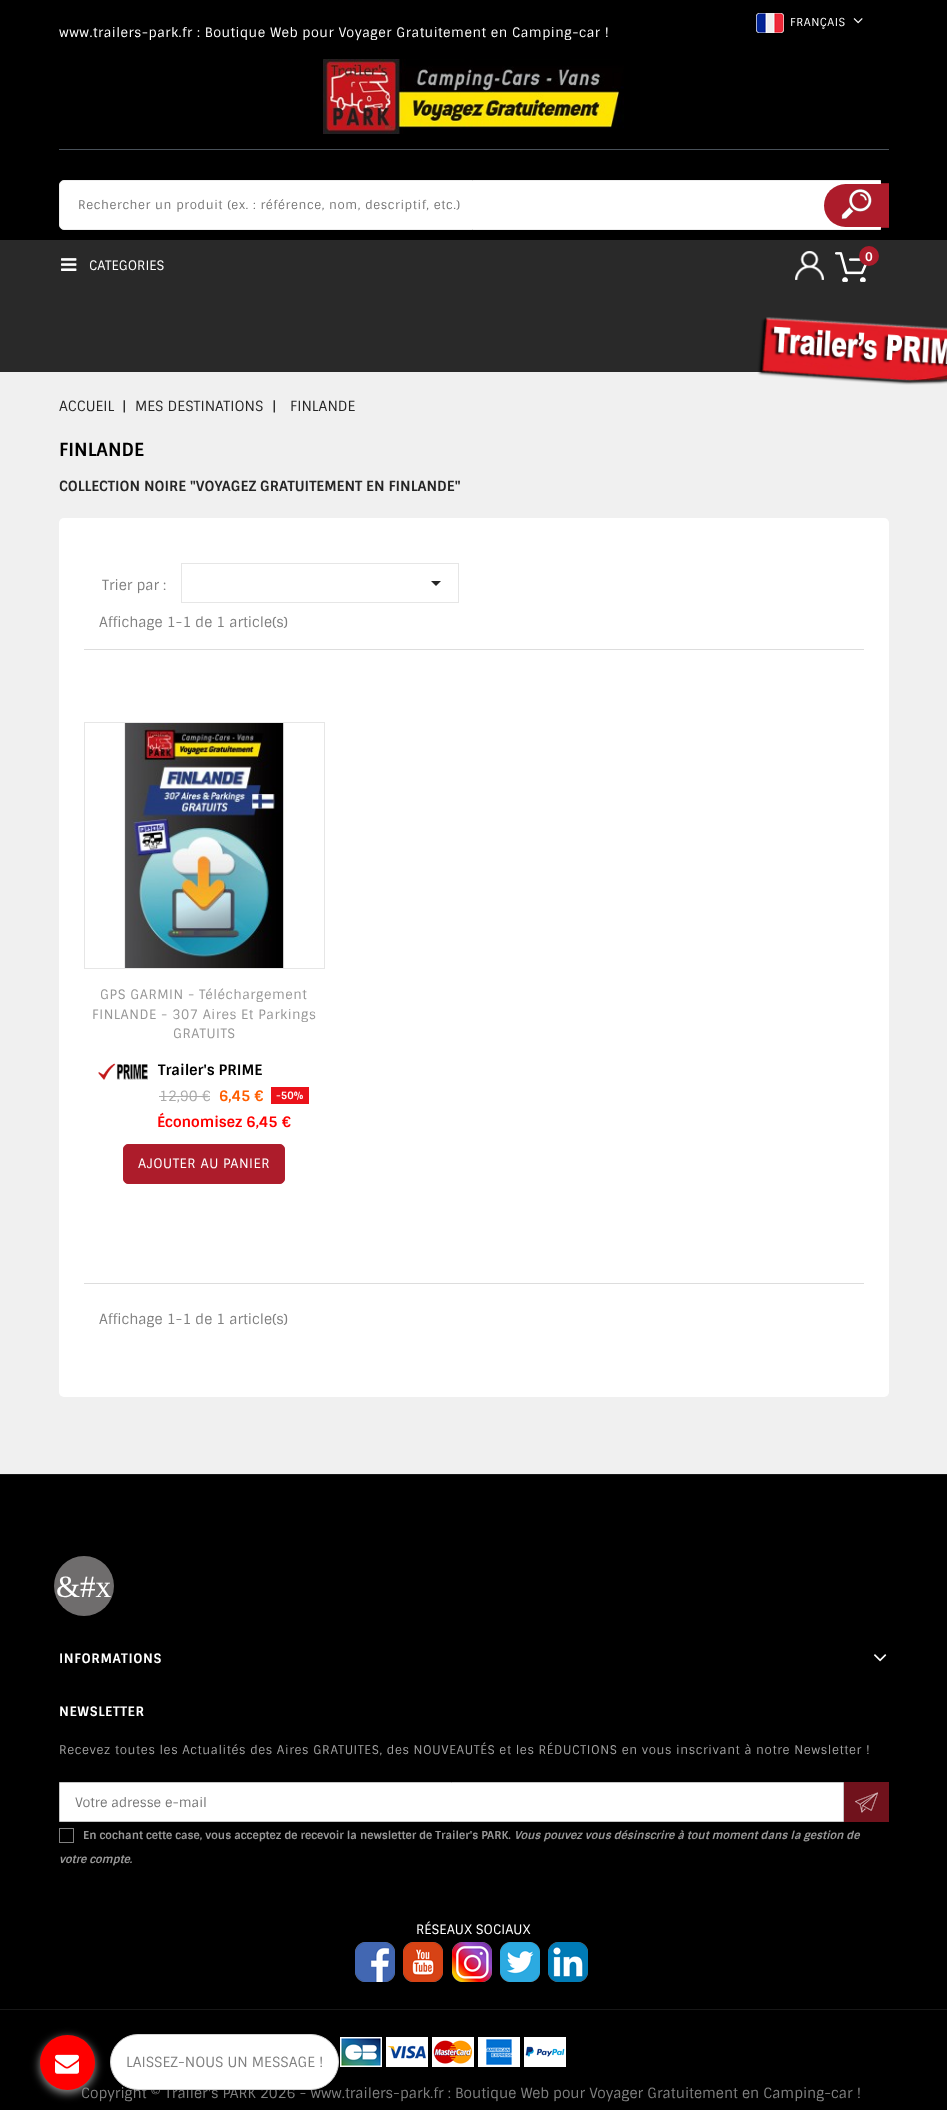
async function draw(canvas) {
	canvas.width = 947;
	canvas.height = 2110;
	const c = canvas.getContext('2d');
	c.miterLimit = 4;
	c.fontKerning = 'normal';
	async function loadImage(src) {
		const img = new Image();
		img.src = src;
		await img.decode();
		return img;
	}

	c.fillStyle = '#f0f0f0';
	c.fillRect(0, 0, 947, 2110);
	c.fillStyle = '#000';
	c.fillRect(0, 0, 947, 240);
	c.drawImage(await loadImage('img1.png'), 756, 13, 28, 20);
	c.letterSpacing = '0.5px';
	c.font = '11px Sintony';
	c.fillStyle = '#fff';
	c.fillText('FRANÇAIS', 790, 26);
	c.drawImage(await loadImage('img2.png'), 853, 18, 10, 6);
	c.font = '13px Sintony';
	c.fillText('www.trailers-park.fr : Boutique Web pour Voyager Gratuitement en Camping-car !', 59, 37);
	c.drawImage(await loadImage('img3.png'), 323, 59, 301, 75);
	c.fillStyle = '#495159';
	c.fillRect(59, 149, 830, 1);
	c.fillStyle = '#8c1622';
	c.fillRect(881, 183, 8, 45);
	c.fillStyle = '#fff';
	c.beginPath();
	c.roundRect(59.5, 180.5, 821, 49, [4.5, 0, 0, 4.5]);
	c.fill();
	c.strokeStyle = '#ededed';
	c.stroke();
	c.letterSpacing = '0.6px';
	c.font = '12px Sintony';
	c.fillStyle = '#757575';
	c.fillText('Rechercher un produit (ex. : référence, nom, descriptif, etc.)', 78, 209);
	c.fillStyle = '#ad1c2b';
	c.beginPath();
	c.roundRect(824, 184, 65, 43, [21.5, 0, 0, 21.5]);
	c.fill();
	c.drawImage(await loadImage('img4.png'), 841, 189, 31, 30);
	c.fillStyle = '#292929';
	c.fillRect(0, 240, 947, 132);
	c.drawImage(await loadImage('img5.png'), 795, 251, 29, 29);
	c.drawImage(await loadImage('img6.png'), 835, 252, 32, 30);
	c.fillStyle = '#ad1c2b';
	c.beginPath();
	c.arc(869, 256, 10, 0, 2 * Math.PI);
	c.fill();
	c.letterSpacing = '0px';
	c.font = 'bold 12px Sintony';
	c.fillStyle = '#fff';
	c.fillText('0', 865, 261);
	c.drawImage(await loadImage('img7.png'), 61, 258, 16, 13);
	c.font = '13px Sintony';
	c.fillText('CATEGORIES', 89, 270);
	c.drawImage(await loadImage('img8.png'), 757, 317, 190, 68);
	c.font = '14px Sintony';
	c.fillStyle = '#262626';
	for (const [text, x, y] of [
		['ACCUEIL', 59, 411],
		['|', 122, 411],
		['MES DESTINATIONS', 135, 411],
		['|', 272, 411],
		['FINLANDE', 290, 411],
	]) {
		c.fillText(text, x, y);
	}
	c.font = 'bold 18px Sintony';
	c.fillStyle = '#000';
	c.fillText('FINLANDE', 59, 456);
	c.font = 'bold 14px Sintony';
	c.fillStyle = '#262626';
	c.fillText('COLLECTION NOIRE "VOYAGEZ GRATUITEMENT EN FINLANDE"', 59, 491);
	c.fillStyle = '#fff';
	c.beginPath();
	c.roundRect(59, 518, 830, 879, 5);
	c.fill();
	c.fillStyle = '#ddd';
	c.fillRect(84, 649, 780, 1);
	c.font = '14px Sintony';
	c.fillStyle = '#808080';
	c.fillText('Trier par :', 102, 590);
	c.strokeStyle = '#e6e6e6';
	c.strokeRect(181.5, 563.5, 277, 39);
	c.fillStyle = '#262626';
	c.beginPath();
	c.moveTo(431, 581);
	c.lineTo(441, 581);
	c.lineTo(436, 586);
	c.closePath();
	c.fill();
	c.fillStyle = '#808080';
	c.fillText('Affichage 1-1 de 1 article(s)', 99, 627);
	c.strokeRect(84.5, 722.5, 240, 246);
	c.drawImage(await loadImage('img9.png'), 124, 723, 163, 245);
	c.letterSpacing = '0.5px';
	c.font = '13px Sintony';
	c.fillStyle = '#979797';
	for (const [text, x, y] of [
		['GPS GARMIN - Téléchargement', 100, 999],
		['FINLANDE - 307 Aires Et Parkings', 92, 1019],
		['GRATUITS', 173, 1038],
	]) {
		c.fillText(text, x, y);
	}
	c.drawImage(await loadImage('img10.png'), 98, 1063, 50, 17);
	c.letterSpacing = '0px';
	c.font = 'bold 14.5px Sintony';
	c.fillStyle = '#000';
	c.fillText('Trailer\'s PRIME', 158, 1075);
	c.font = '14px Sintony';
	c.fillStyle = '#aaa';
	c.fillText('12,90 €', 159, 1101);
	c.fillRect(159, 1096, 51, 1);
	c.font = 'bold 14.5px Sintony';
	c.fillStyle = '#ff5e00';
	c.fillText('6,45 €', 219, 1101);
	c.fillStyle = '#eb121a';
	c.fillRect(271, 1087, 38, 17);
	c.font = 'bold 10px Sintony';
	c.fillStyle = '#fff';
	c.fillText('-50%', 276, 1099);
	c.font = 'bold 14.5px Sintony';
	c.fillStyle = '#f00';
	c.fillText('Économisez 6,45 €', 157, 1127);
	c.fillStyle = '#ad1c2b';
	c.beginPath();
	c.roundRect(123.5, 1144.5, 161, 39, 4.5);
	c.fill();
	c.strokeStyle = '#af1e2d';
	c.stroke();
	c.letterSpacing = '0.5px';
	c.font = '13px Sintony';
	c.fillStyle = '#fff';
	c.fillText('AJOUTER AU PANIER', 138, 1168);
	c.fillStyle = '#ddd';
	c.fillRect(84, 1283, 780, 1);
	c.letterSpacing = '0px';
	c.font = '14px Sintony';
	c.fillStyle = '#808080';
	c.fillText('Affichage 1-1 de 1 article(s)', 99, 1324);
	c.fillStyle = '#000';
	c.fillRect(0, 1475, 947, 635);
	c.fillStyle = '#171717';
	c.fillRect(0, 1474, 947, 1);
	c.fillStyle = '#6f6d6d';
	c.beginPath();
	c.arc(84, 1586, 30, 0, 2 * Math.PI);
	c.fill();
	c.font = '31px Liberation Serif';
	c.fillStyle = '#fff';
	c.fillText('&#x', 56, 1597);
	c.letterSpacing = '0.6px';
	c.font = 'bold 13px Sintony';
	c.fillText('INFORMATIONS', 59, 1663);
	c.drawImage(await loadImage('img11.png'), 874, 1654, 13, 8);
	c.fillText('NEWSLETTER', 59, 1716);
	c.font = '12px Sintony';
	c.fillStyle = '#a1a1a1';
	c.fillText('Recevez toutes les Actualités des Aires GRATUITES, des NOUVEAUTÉS et les RÉDUCTIONS en vous inscrivant à notre Newsletter !', 59, 1754);
	c.fillStyle = '#fff';
	c.beginPath();
	c.rect(59.5, 1782.5, 784, 39);
	c.fill();
	c.strokeStyle = '#c5c5c5';
	c.stroke();
	c.letterSpacing = '0px';
	c.font = '13px Sintony';
	c.fillStyle = '#757575';
	c.fillText('Votre adresse e-mail', 75, 1807);
	c.fillStyle = '#70121c';
	c.fillRect(844, 1782, 45, 40);
	c.drawImage(await loadImage('img12.png'), 855, 1792, 23, 21);
	c.strokeStyle = '#808080';
	c.strokeRect(59.5, 1828.5, 14, 14);
	c.font = 'bold 11px Sintony';
	c.fillStyle = '#979797';
	c.fillText('En cochant cette case, vous acceptez de recevoir la newsletter de Trailer\'s PARK.', 83, 1839);
	c.font = 'italic bold 11px Sintony';
	c.fillText('Vous pouvez vous désinscrire à tout moment dans la gestion de', 514, 1839);
	c.fillText('votre compte.', 59, 1863);
	c.font = '13px Sintony';
	c.fillStyle = '#fff';
	c.fillText('RÉSEAUX SOCIAUX', 416, 1934);
	c.drawImage(await loadImage('img13.png'), 355, 1942, 40, 40);
	c.drawImage(await loadImage('img14.png'), 403, 1942, 40, 40);
	c.drawImage(await loadImage('img15.png'), 452, 1942, 40, 40);
	c.drawImage(await loadImage('img16.png'), 500, 1942, 40, 40);
	c.drawImage(await loadImage('img17.png'), 548, 1942, 40, 40);
	c.fillStyle = '#171717';
	c.fillRect(0, 2009, 947, 1);
	c.drawImage(await loadImage('img18.png'), 340, 2037, 42, 30);
	c.drawImage(await loadImage('img19.png'), 386, 2037, 42, 30);
	c.drawImage(await loadImage('img20.png'), 432, 2037, 42, 30);
	c.drawImage(await loadImage('img21.png'), 478, 2037, 42, 30);
	c.drawImage(await loadImage('img22.png'), 524, 2037, 42, 30);
	c.font = '14px Sintony';
	c.fillStyle = '#808080';
	c.fillText('Copyright © Trailer\'s PARK 2026 - www.trailers-park.fr : Boutique Web pour Voyager Gratuitement en Camping-car !', 81, 2098);
	c.fillStyle = '#999';
	c.filter = 'blur(5px)';
	c.beginPath();
	c.roundRect(40, 2038, 55, 55, 27.5);
	c.fill();
	c.filter = 'none';
	c.fillStyle = '#f00';
	c.beginPath();
	c.arc(67.5, 2062.5, 27.5, 0, 2 * Math.PI);
	c.fill();
	c.drawImage(await loadImage('img23.png'), 55, 2054, 24, 20);
	c.fillStyle = '#fff';
	c.beginPath();
	c.roundRect(110.5, 2034.5, 228, 55, 27.5);
	c.fill();
	c.strokeStyle = '#d3d3d3';
	c.stroke();
	c.fillStyle = '#808080';
	c.fillText('LAISSEZ-NOUS UN MESSAGE !', 126, 2067);
}

draw(document.querySelector('canvas'));
